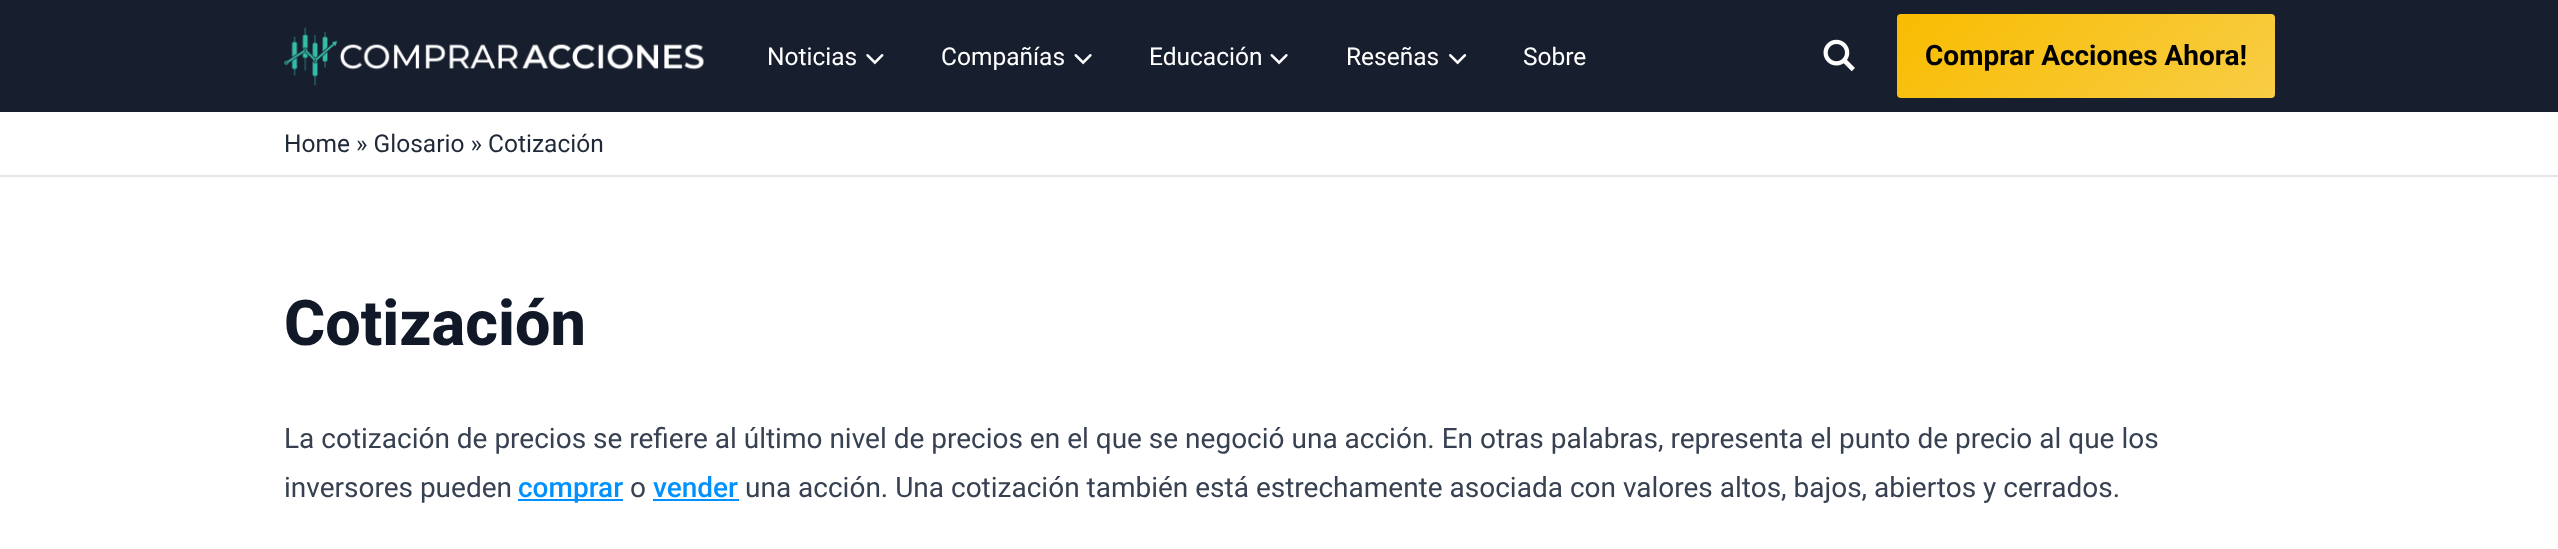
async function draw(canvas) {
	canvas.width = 2558;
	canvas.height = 549;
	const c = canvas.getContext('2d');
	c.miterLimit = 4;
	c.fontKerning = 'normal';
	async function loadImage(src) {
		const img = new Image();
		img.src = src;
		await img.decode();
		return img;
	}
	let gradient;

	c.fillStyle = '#fff';
	c.fillRect(0, 0, 2558, 549);
	c.fillStyle = '#171e2d';
	c.fillRect(0, 0, 2558, 112);
	c.drawImage(await loadImage('img1.png'), 284, 27, 420, 59);
	c.font = '24.5px Roboto';
	c.fillStyle = '#fff';
	c.fillText('Noticias', 767, 65);
	c.drawImage(await loadImage('img2.png'), 866, 54, 18, 11);
	c.fillText('Compañías', 941, 65);
	c.drawImage(await loadImage('img3.png'), 1074, 54, 18, 11);
	c.fillText('Educación', 1149, 65);
	c.drawImage(await loadImage('img3.png'), 1270, 54, 18, 11);
	c.fillText('Reseñas', 1346, 65);
	c.drawImage(await loadImage('img4.png'), 1449, 54, 18, 11);
	c.fillText('Sobre', 1523, 65);
	c.drawImage(await loadImage('img5.png'), 1823, 39, 32, 33);
	gradient = c.createLinearGradient(1980, -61, 2192, 173);
	gradient.addColorStop(0, '#f8bc00');
	gradient.addColorStop(1, '#f8cd46');
	c.fillStyle = gradient;
	c.beginPath();
	c.roundRect(1897, 14, 378, 84, 4);
	c.fill();
	c.font = 'bold 28px Roboto';
	c.fillStyle = '#000';
	c.fillText('Comprar Acciones Ahora!', 1925, 65);
	c.fillStyle = '#e5e7eb';
	c.fillRect(0, 175, 2558, 2);
	c.font = '24.5px Roboto';
	c.fillStyle = '#1f2937';
	c.fillText('Home » Glosario » Cotización', 284, 152);
	c.font = '800 63px Roboto';
	c.fillStyle = '#111827';
	c.fillText('Cotización', 284, 345);
	c.font = '28px Roboto';
	c.fillStyle = '#374151';
	c.fillText('La cotización de precios se refiere al último nivel de precios en el que se negoció una acción. En otras palabras, representa el punto de precio al que los', 284, 448);
	c.fillText('inversores pueden', 284, 497);
	c.fillStyle = '#0091ff';
	c.fillRect(518, 499, 105, 2);
	c.font = '500 28px Roboto';
	c.fillText('comprar', 518, 497);
	c.font = '28px Roboto';
	c.fillStyle = '#374151';
	c.fillText('o', 630, 497);
	c.font = '500 28px Roboto';
	c.fillStyle = '#0091ff';
	c.fillText('vender', 653, 497);
	c.fillRect(653, 499, 86, 2);
	c.font = '28px Roboto';
	c.fillStyle = '#374151';
	c.fillText('una acción. Una cotización también está estrechamente asociada con valores altos, bajos, abiertos y cerrados.', 745, 497);
}

draw(document.querySelector('canvas'));
